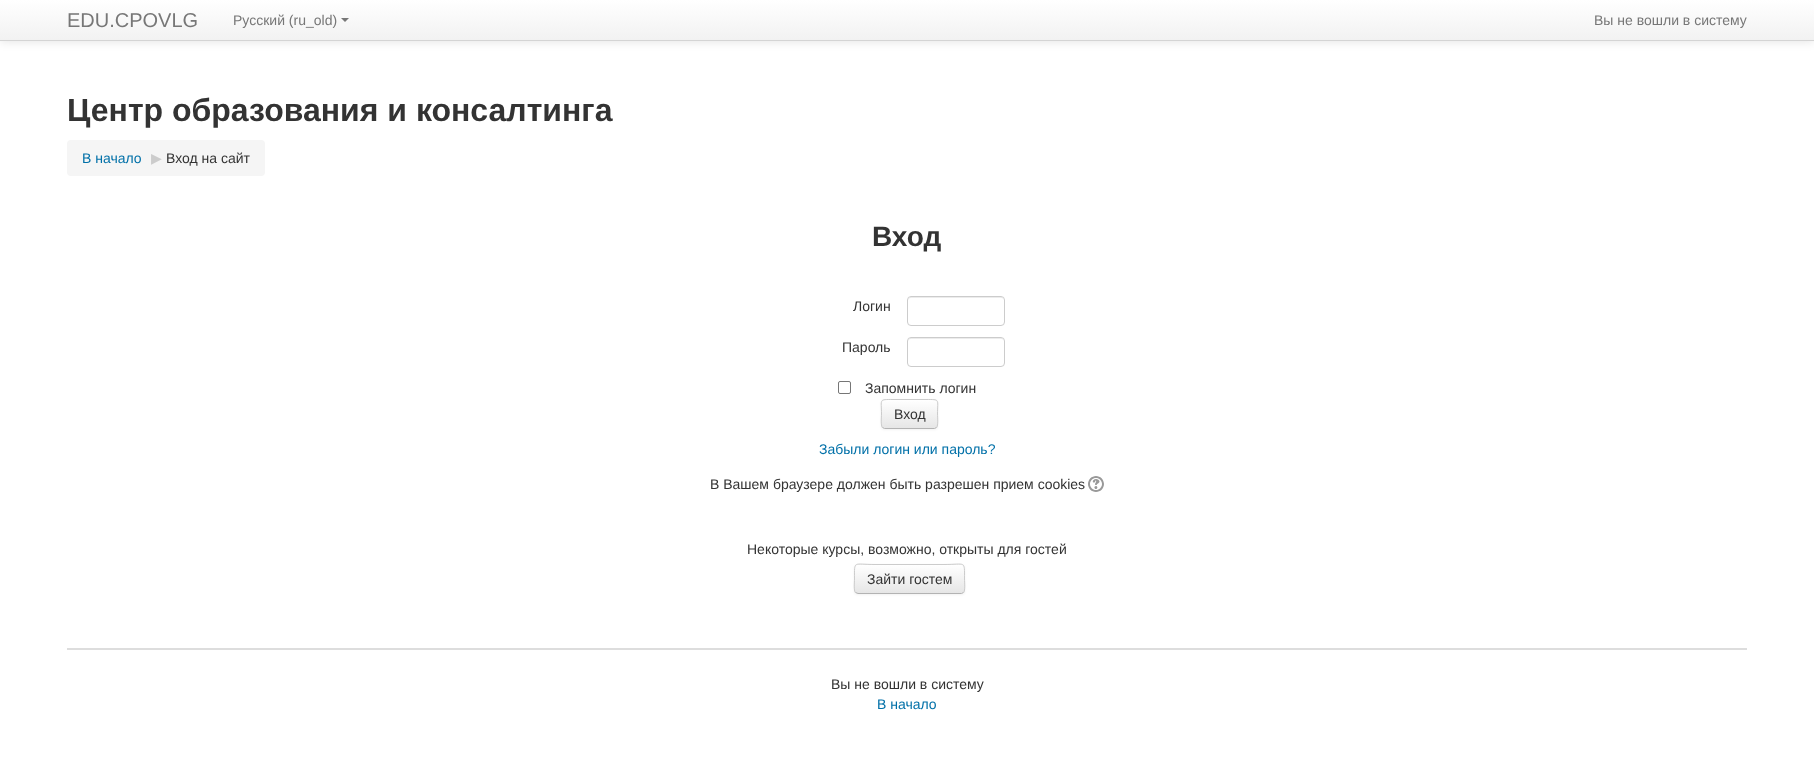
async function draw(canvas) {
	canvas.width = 1814;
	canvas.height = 770;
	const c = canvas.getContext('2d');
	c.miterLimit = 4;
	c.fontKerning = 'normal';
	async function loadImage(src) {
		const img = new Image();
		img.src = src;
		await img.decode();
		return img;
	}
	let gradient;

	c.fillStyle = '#fff';
	c.fillRect(0, 0, 1814, 770);
	c.fillStyle = '#0000001a';
	c.filter = 'blur(5px)';
	c.beginPath();
	c.rect(0, 1, 1814, 41);
	c.fill();
	c.filter = 'none';
	gradient = c.createLinearGradient(907, 0, 907, 40);
	gradient.addColorStop(0, '#fff');
	gradient.addColorStop(1, '#f2f2f2');
	c.fillStyle = gradient;
	c.fillRect(0, 0, 1814, 40);
	c.fillStyle = '#d4d4d4';
	c.fillRect(0, 40, 1814, 1);
	c.font = '20px Liberation Sans';
	c.fillStyle = '#777';
	c.fillText('EDU.CPOVLG', 67, 27);
	c.font = '14px Liberation Sans';
	c.fillText('Русский (ru_old)', 233, 25);
	c.beginPath();
	c.moveTo(341, 18);
	c.lineTo(349, 18);
	c.lineTo(345, 22);
	c.closePath();
	c.fill();
	c.fillText('Вы не вошли в систему', 1594, 25);
	c.font = 'bold 32px Liberation Sans';
	c.fillStyle = '#333';
	c.fillText('Центр образования и консалтинга', 67, 121);
	c.fillStyle = '#f5f5f5';
	c.beginPath();
	c.roundRect(67, 140, 198, 36, 4);
	c.fill();
	c.font = '14px Liberation Sans';
	c.fillStyle = '#0070a8';
	c.fillText('В начало', 82, 163);
	c.font = '14px DejaVu Sans';
	c.fillStyle = '#ccc';
	c.fillText('▶︎', 151, 163);
	c.font = '14px Liberation Sans';
	c.fillStyle = '#333';
	c.fillText('Вход на сайт', 166, 163);
	c.font = 'bold 28px Liberation Sans';
	c.fillText('Вход', 872, 246);
	c.font = '14px Liberation Sans';
	c.fillText('Логин', 853, 311);
	c.fillStyle = '#ececec';
	c.beginPath();
	c.moveTo(911, 298);
	c.lineTo(1001, 298);
	c.bezierCurveTo(1003, 298, 1004, 299, 1004, 301);
	c.bezierCurveTo(1004, 293, 989, 297, 986, 297);
	c.lineTo(926, 297);
	c.bezierCurveTo(923, 297, 908, 293, 908, 301);
	c.bezierCurveTo(908, 299, 909, 298, 911, 298);
	c.closePath();
	c.fill();
	c.beginPath();
	c.roundRect(907.5, 296.5, 97, 29, 3.5);
	c.strokeStyle = '#ccc';
	c.stroke();
	c.fillStyle = '#333';
	c.fillText('Пароль', 842, 352);
	c.fillStyle = '#ececec';
	c.beginPath();
	c.moveTo(911, 339);
	c.lineTo(1001, 339);
	c.bezierCurveTo(1003, 339, 1004, 340, 1004, 342);
	c.bezierCurveTo(1004, 334, 989, 338, 986, 338);
	c.lineTo(926, 338);
	c.bezierCurveTo(923, 338, 908, 334, 908, 342);
	c.bezierCurveTo(908, 340, 909, 339, 911, 339);
	c.closePath();
	c.fill();
	c.beginPath();
	c.roundRect(907.5, 337.5, 97, 29, 3.5);
	c.stroke();
	c.beginPath();
	c.roundRect(838.5, 381.5, 12, 12, 1.5);
	c.strokeStyle = '#767676';
	c.stroke();
	c.fillStyle = '#333';
	c.fillText('Запомнить логин', 865, 393);
	c.fillStyle = '#0000000d';
	c.filter = 'blur(1px)';
	c.beginPath();
	c.roundRect(881, 400, 57, 30, 4);
	c.fill();
	c.filter = 'none';
	c.fillStyle = '#f5f5f5';
	c.beginPath();
	c.roundRect(881, 399, 57, 30, 4);
	c.fill();
	c.save();
	c.beginPath();
	c.roundRect(881, 399, 57, 30, 4);
	c.clip();
	gradient = c.createLinearGradient(910, 400, 910, 428);
	gradient.addColorStop(0, '#fff');
	gradient.addColorStop(1, '#e6e6e6');
	c.fillStyle = gradient;
	c.fillRect(881, 400, 57, 28);
	c.restore();
	c.fillStyle = '#fff';
	c.beginPath();
	c.moveTo(885, 401);
	c.lineTo(934, 401);
	c.bezierCurveTo(936, 401, 937, 402, 937, 404);
	c.bezierCurveTo(937, 398, 930, 400, 926, 400);
	c.lineTo(893, 400);
	c.bezierCurveTo(889, 400, 882, 398, 882, 404);
	c.bezierCurveTo(882, 402, 883, 401, 885, 401);
	c.closePath();
	c.fill();
	c.beginPath();
	c.moveTo(936.5, 427.5);
	c.lineTo(934.5, 428.5);
	c.lineTo(884.5, 428.5);
	c.lineTo(882.5, 427.5);
	c.strokeStyle = '#b3b3b3';
	c.stroke();
	c.beginPath();
	c.moveTo(882.5, 427.5);
	c.bezierCurveTo(880.5, 425.5, 881.5, 417, 881.5, 414);
	c.bezierCurveTo(881.5, 399, 878.5, 399.5, 893, 399.5);
	c.lineTo(926, 399.5);
	c.bezierCurveTo(940.5, 399.5, 937.5, 399, 937.5, 414);
	c.bezierCurveTo(937.5, 417, 938.5, 425.5, 936.5, 427.5);
	c.strokeStyle = '#ccc';
	c.stroke();
	c.fillStyle = '#333';
	c.fillText('Вход', 894, 419);
	c.fillStyle = '#0070a8';
	c.fillText('Забыли логин или пароль?', 819, 454);
	c.fillStyle = '#333';
	c.fillText('В Вашем браузере должен быть разрешен прием cookies', 710, 489);
	c.drawImage(await loadImage('img1.png'), 1088, 476, 16, 16);
	c.fillText('Некоторые курсы, возможно, открыты для гостей', 747, 554);
	c.fillStyle = '#0000000d';
	c.filter = 'blur(1px)';
	c.beginPath();
	c.roundRect(854, 565, 111, 30, 4);
	c.fill();
	c.filter = 'none';
	c.fillStyle = '#f5f5f5';
	c.beginPath();
	c.roundRect(854, 564, 111, 30, 4);
	c.fill();
	c.save();
	c.beginPath();
	c.roundRect(854, 564, 111, 30, 4);
	c.clip();
	gradient = c.createLinearGradient(910, 565, 910, 593);
	gradient.addColorStop(0, '#fff');
	gradient.addColorStop(1, '#e6e6e6');
	c.fillStyle = gradient;
	c.fillRect(854, 565, 111, 28);
	c.restore();
	c.beginPath();
	c.moveTo(963.5, 592.5);
	c.lineTo(961.5, 593.5);
	c.lineTo(875, 593.5);
	c.lineTo(858, 593.5);
	c.lineTo(855.5, 592.5);
	c.strokeStyle = '#b3b3b3';
	c.stroke();
	c.beginPath();
	c.moveTo(855.5, 592.5);
	c.bezierCurveTo(853.5, 590.5, 854.5, 582, 854.5, 579);
	c.bezierCurveTo(854.5, 560, 853, 564.5, 875, 564.5);
	c.lineTo(944, 564.5);
	c.bezierCurveTo(966, 564.5, 964.5, 560, 964.5, 579);
	c.bezierCurveTo(964.5, 582, 965.5, 590.5, 963.5, 592.5);
	c.strokeStyle = '#ccc';
	c.stroke();
	c.fillStyle = '#333';
	c.fillText('Зайти гостем', 867, 584);
	c.fillStyle = '#ddd';
	c.fillRect(67, 648, 1680, 2);
	c.fillStyle = '#333';
	c.fillText('Вы не вошли в систему', 831, 689);
	c.fillStyle = '#0070a8';
	c.fillText('В начало', 877, 709);
}

draw(document.querySelector('canvas'));
